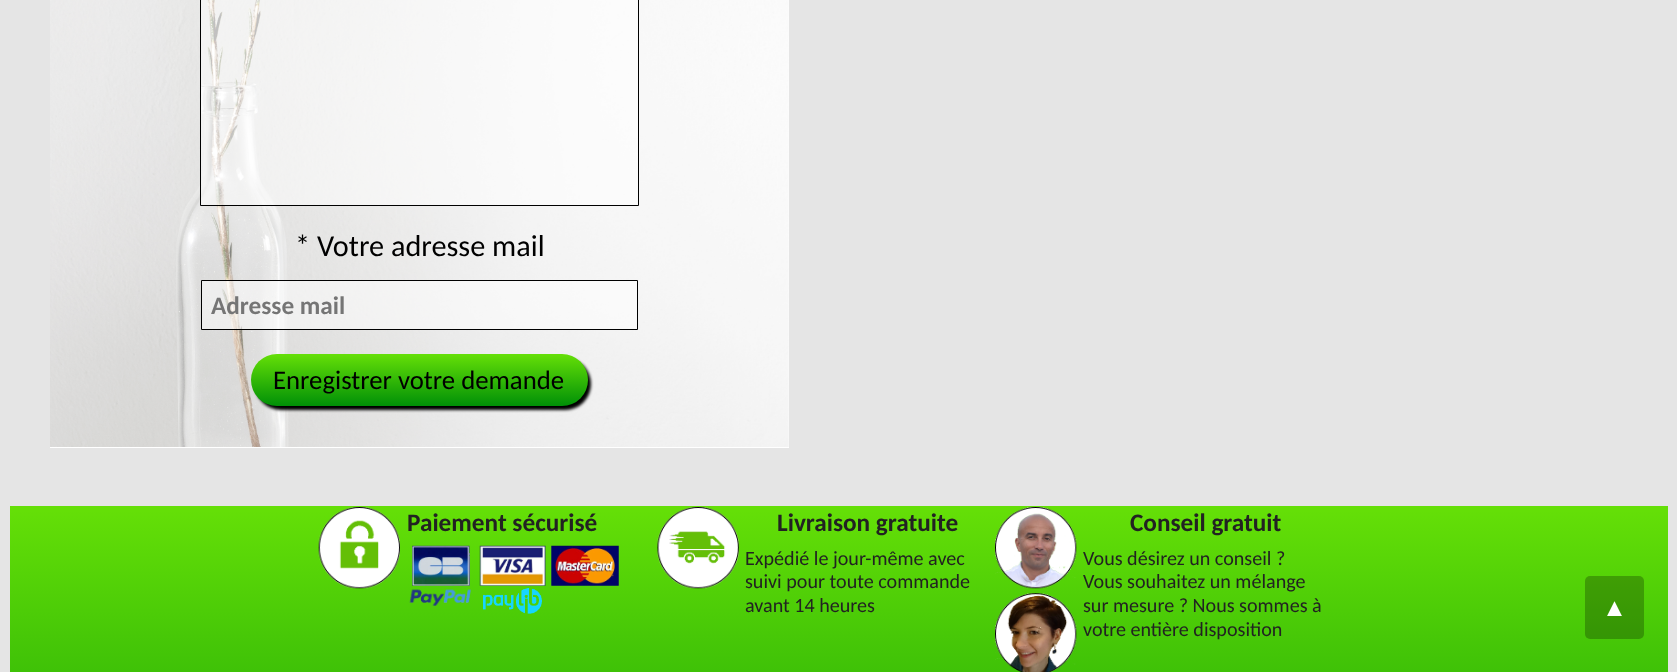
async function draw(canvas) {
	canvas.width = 1677;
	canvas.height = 672;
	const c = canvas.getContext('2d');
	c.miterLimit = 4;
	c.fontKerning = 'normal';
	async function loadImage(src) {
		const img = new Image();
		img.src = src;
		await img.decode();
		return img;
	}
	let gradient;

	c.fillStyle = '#e5e5e5';
	c.fillRect(0, 0, 1677, 672);
	c.fillStyle = '#fff';
	c.fillRect(50, 0, 739, 448);
	c.drawImage(await loadImage('img1.png'), 50, 0, 739, 447);
	c.fillStyle = '#ffffff80';
	c.beginPath();
	c.rect(200.5, -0.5, 438, 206);
	c.fill();
	c.strokeStyle = '#000';
	c.stroke();
	c.font = '30.25px Carlito';
	c.fillStyle = '#000';
	c.fillText('* Votre adresse mail', 295, 256);
	c.fillStyle = '#ffffff80';
	c.beginPath();
	c.rect(201.5, 280.5, 436, 49);
	c.fill();
	c.stroke();
	c.font = 'bold 25.25px Carlito';
	c.fillStyle = '#757575';
	c.fillText('Adresse mail', 211, 314);
	c.fillStyle = '#000';
	c.filter = 'blur(1.5px)';
	c.beginPath();
	c.roundRect(255, 358, 336, 52, 26);
	c.fill();
	c.filter = 'none';
	gradient = c.createLinearGradient(419, 354, 419, 406);
	gradient.addColorStop(0.01, '#64df07');
	gradient.addColorStop(1, '#009007');
	c.fillStyle = gradient;
	c.beginPath();
	c.roundRect(251, 354, 337, 52, 26);
	c.fill();
	c.font = '26.75px Carlito';
	c.fillStyle = '#000';
	c.fillText('Enregistrer votre demande', 273, 389);
	gradient = c.createLinearGradient(839, 506, 839, 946);
	gradient.addColorStop(0.01, '#64df07');
	gradient.addColorStop(1, '#009007');
	c.fillStyle = gradient;
	c.fillRect(10, 506, 1658, 166);
	c.drawImage(await loadImage('img2.png'), 318, 507, 82, 82);
	c.font = 'bold 25.25px Carlito';
	c.fillStyle = '#222';
	c.fillText('Paiement sécurisé', 407, 531);
	c.drawImage(await loadImage('img3.png'), 412, 545, 58, 41);
	c.drawImage(await loadImage('img4.png'), 479, 545, 67, 41);
	c.drawImage(await loadImage('img5.png'), 551, 545, 68, 41);
	c.drawImage(await loadImage('img6.png'), 409, 589, 62, 17);
	c.drawImage(await loadImage('img7.png'), 483, 588, 59, 26);
	c.drawImage(await loadImage('img8.png'), 657, 507, 82, 82);
	c.fillText('Livraison gratuite', 777, 531);
	c.font = '20.1px Carlito';
	for (const [text, x, y] of [
		['Expédié le jour-même avec', 745, 565],
		['suivi pour toute commande', 745, 588],
		['avant 14 heures', 745, 612],
	]) {
		c.fillText(text, x, y);
	}
	c.drawImage(await loadImage('img9.png'), 995, 507, 82, 82);
	c.drawImage(await loadImage('img10.png'), 995, 593, 82, 79);
	c.font = 'bold 25.25px Carlito';
	c.fillText('Conseil gratuit', 1130, 531);
	c.font = '20.1px Carlito';
	for (const [text, x, y] of [
		['Vous désirez un conseil ?', 1083, 565],
		['Vous souhaitez un mélange', 1083, 588],
		['sur mesure ? Nous sommes à', 1083, 612],
		['votre entière disposition', 1083, 636],
	]) {
		c.fillText(text, x, y);
	}
	c.fillStyle = '#00000040';
	c.beginPath();
	c.roundRect(1585, 576, 59, 63, 5);
	c.fill();
	c.font = '25.25px Liberation Serif';
	c.fillStyle = '#fff';
	c.fillText('▲', 1602, 616);
}

draw(document.querySelector('canvas'));
